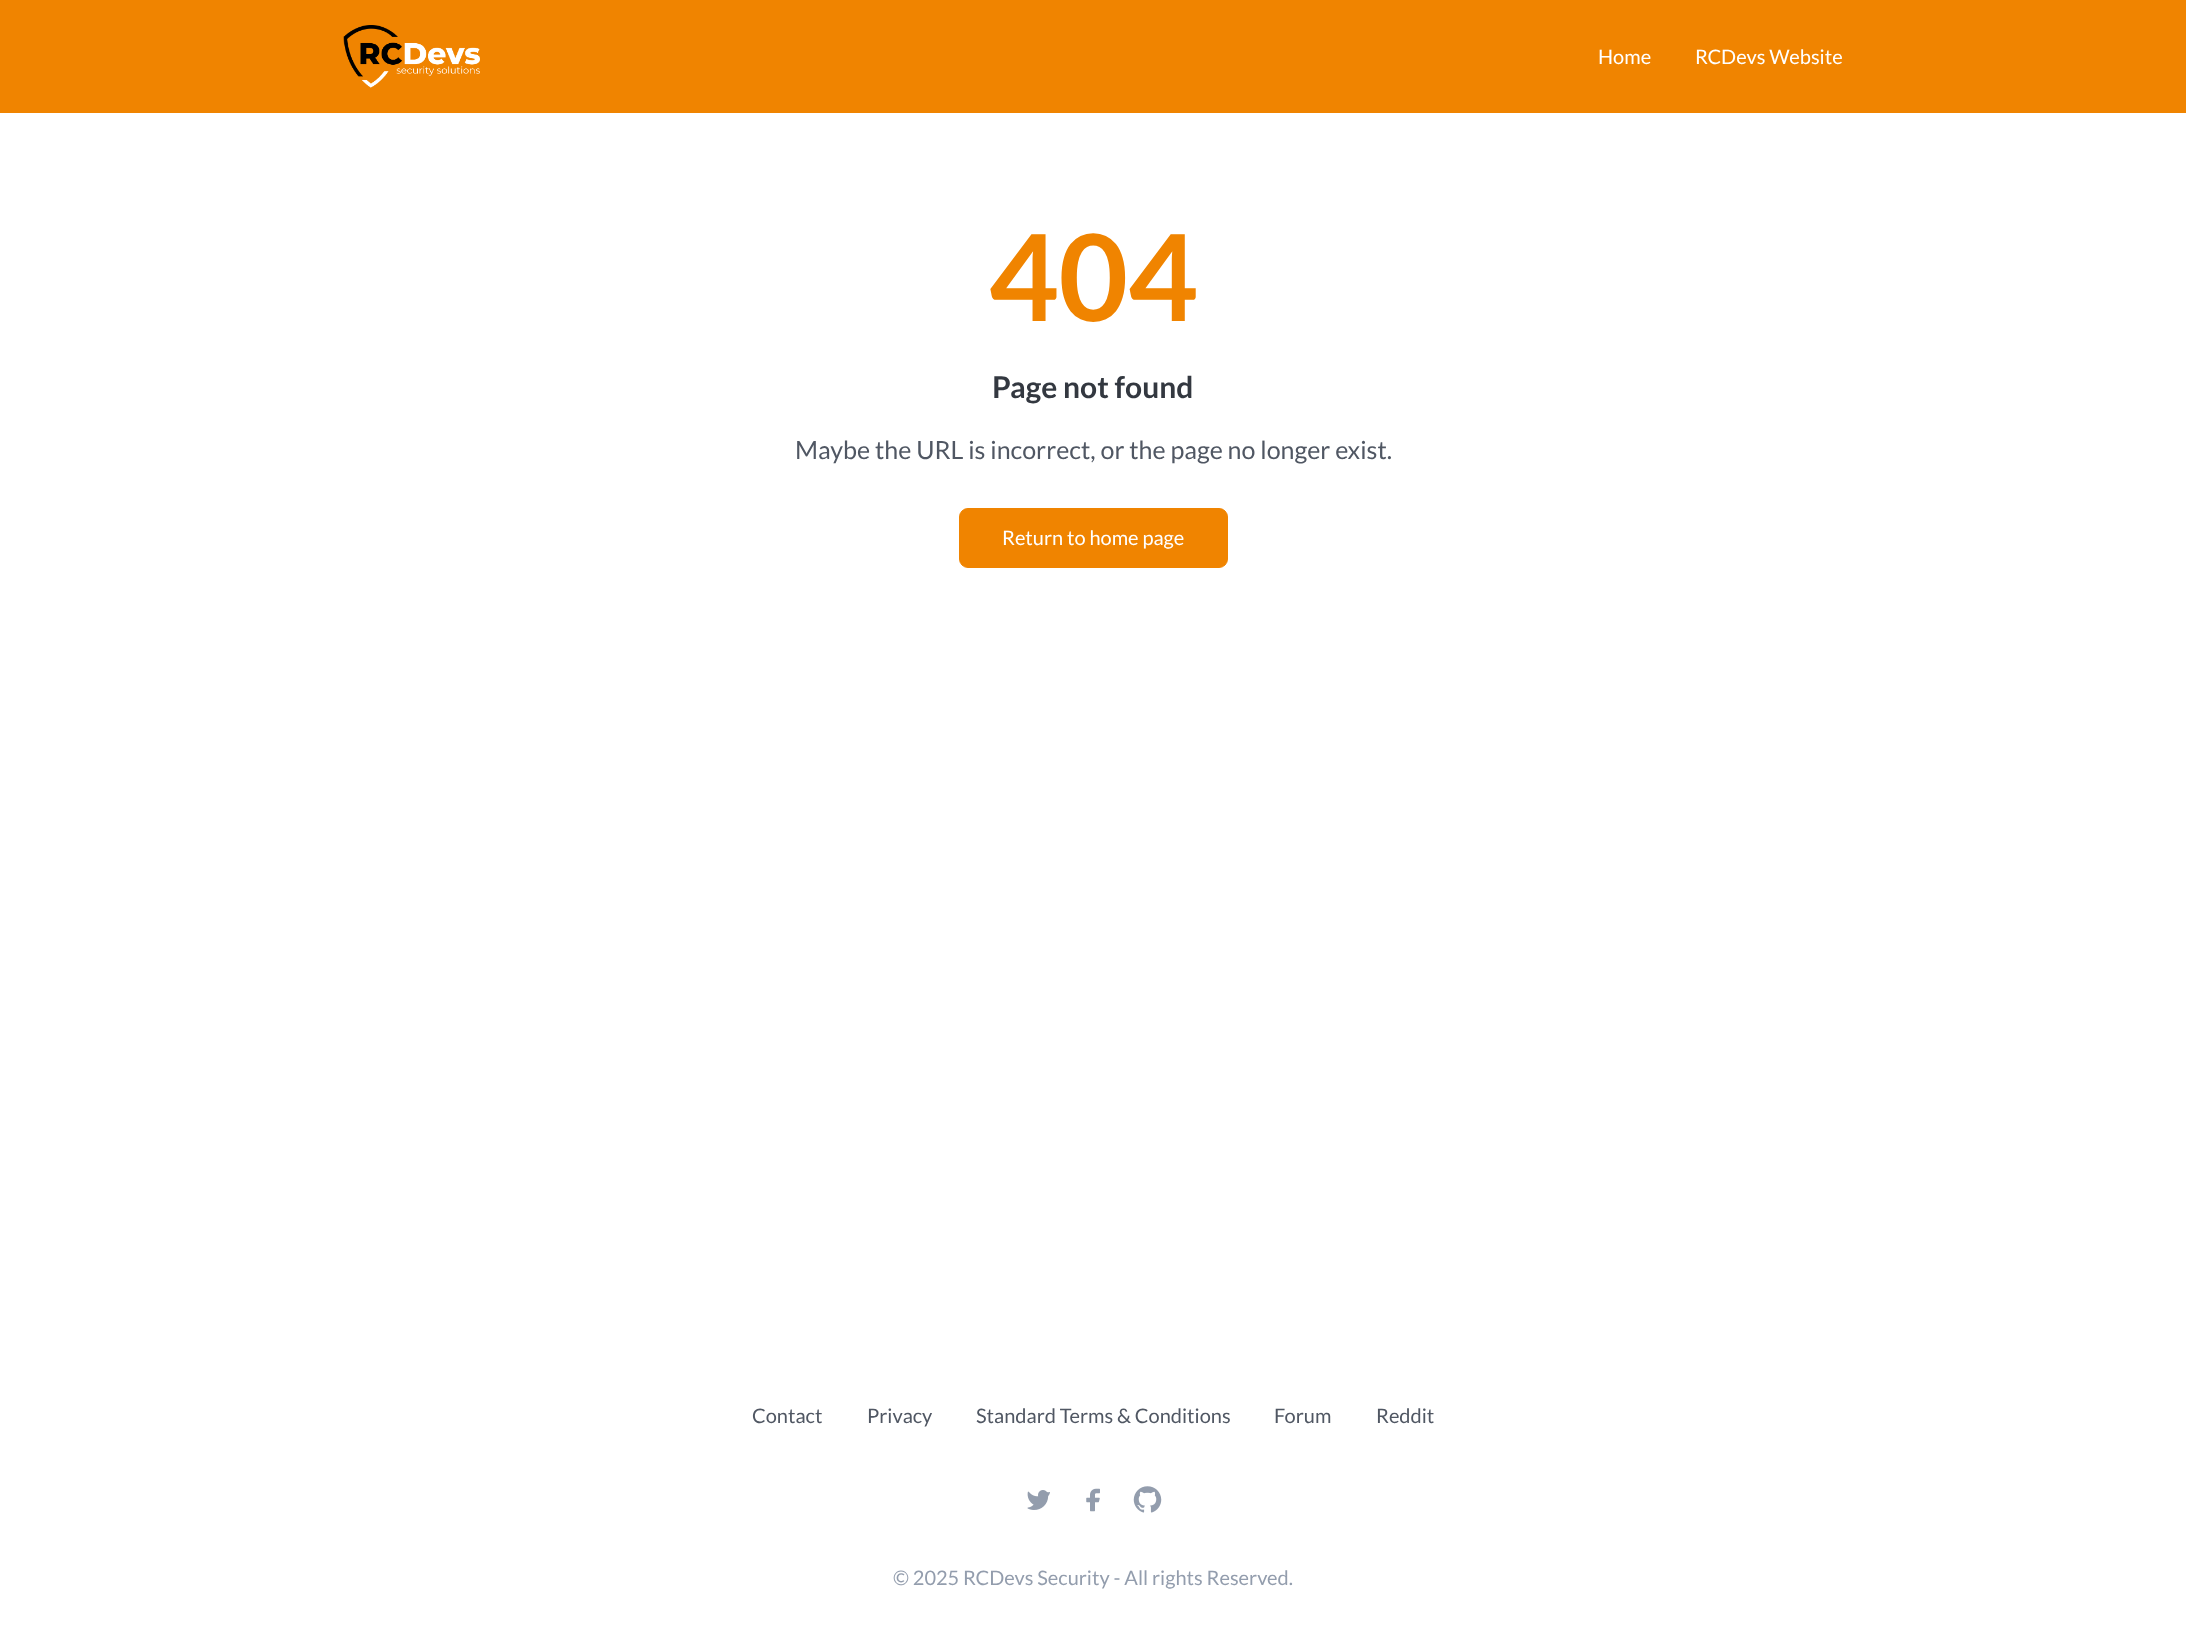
async function draw(canvas) {
	canvas.width = 2186;
	canvas.height = 1652;
	const c = canvas.getContext('2d');
	c.miterLimit = 4;
	c.fontKerning = 'normal';
	async function loadImage(src) {
		const img = new Image();
		img.src = src;
		await img.decode();
		return img;
	}

	c.fillStyle = '#fff';
	c.fillRect(0, 0, 2186, 1652);
	c.fillStyle = '#f08400';
	c.fillRect(0, 0, 2186, 113);
	c.drawImage(await loadImage('img1.png'), 343, 25, 137, 63);
	c.font = '20px Lato';
	c.fillStyle = '#fff';
	c.fillText('Home', 1598, 64);
	c.fillText('RCDevs Website', 1695, 64);
	c.font = 'bold 120px Lato';
	c.fillStyle = '#f08400';
	c.fillText('404', 989, 321);
	c.font = 'bold 30px Lato';
	c.fillStyle = '#333840';
	c.fillText('Page not found', 992, 398);
	c.font = '25px Lato';
	c.fillStyle = '#505763';
	c.fillText('Maybe the URL is incorrect, or the page no longer exist.', 795, 459);
	c.fillStyle = '#f08400';
	c.beginPath();
	c.roundRect(959.5, 508.5, 268, 59, 8.5);
	c.fill();
	c.strokeStyle = '#f08400';
	c.stroke();
	c.font = '20px Lato';
	c.fillStyle = '#fff';
	c.fillText('Return to home page', 1002, 545);
	c.fillStyle = '#505763';
	for (const [text, x, y] of [
		['Contact', 752, 1423],
		['Privacy', 867, 1423],
		['Standard Terms & Conditions', 976, 1423],
		['Forum', 1274, 1423],
		['Reddit', 1376, 1423],
	]) {
		c.fillText(text, x, y);
	}
	c.drawImage(await loadImage('img2.png'), 1027, 1490, 23, 20);
	c.drawImage(await loadImage('img3.png'), 1086, 1488, 14, 24);
	c.drawImage(await loadImage('img4.png'), 1133, 1486, 29, 27);
	c.fillStyle = '#939dad';
	c.fillText('© 2025 RCDevs Security - All rights Reserved.', 893, 1585);
}

draw(document.querySelector('canvas'));
